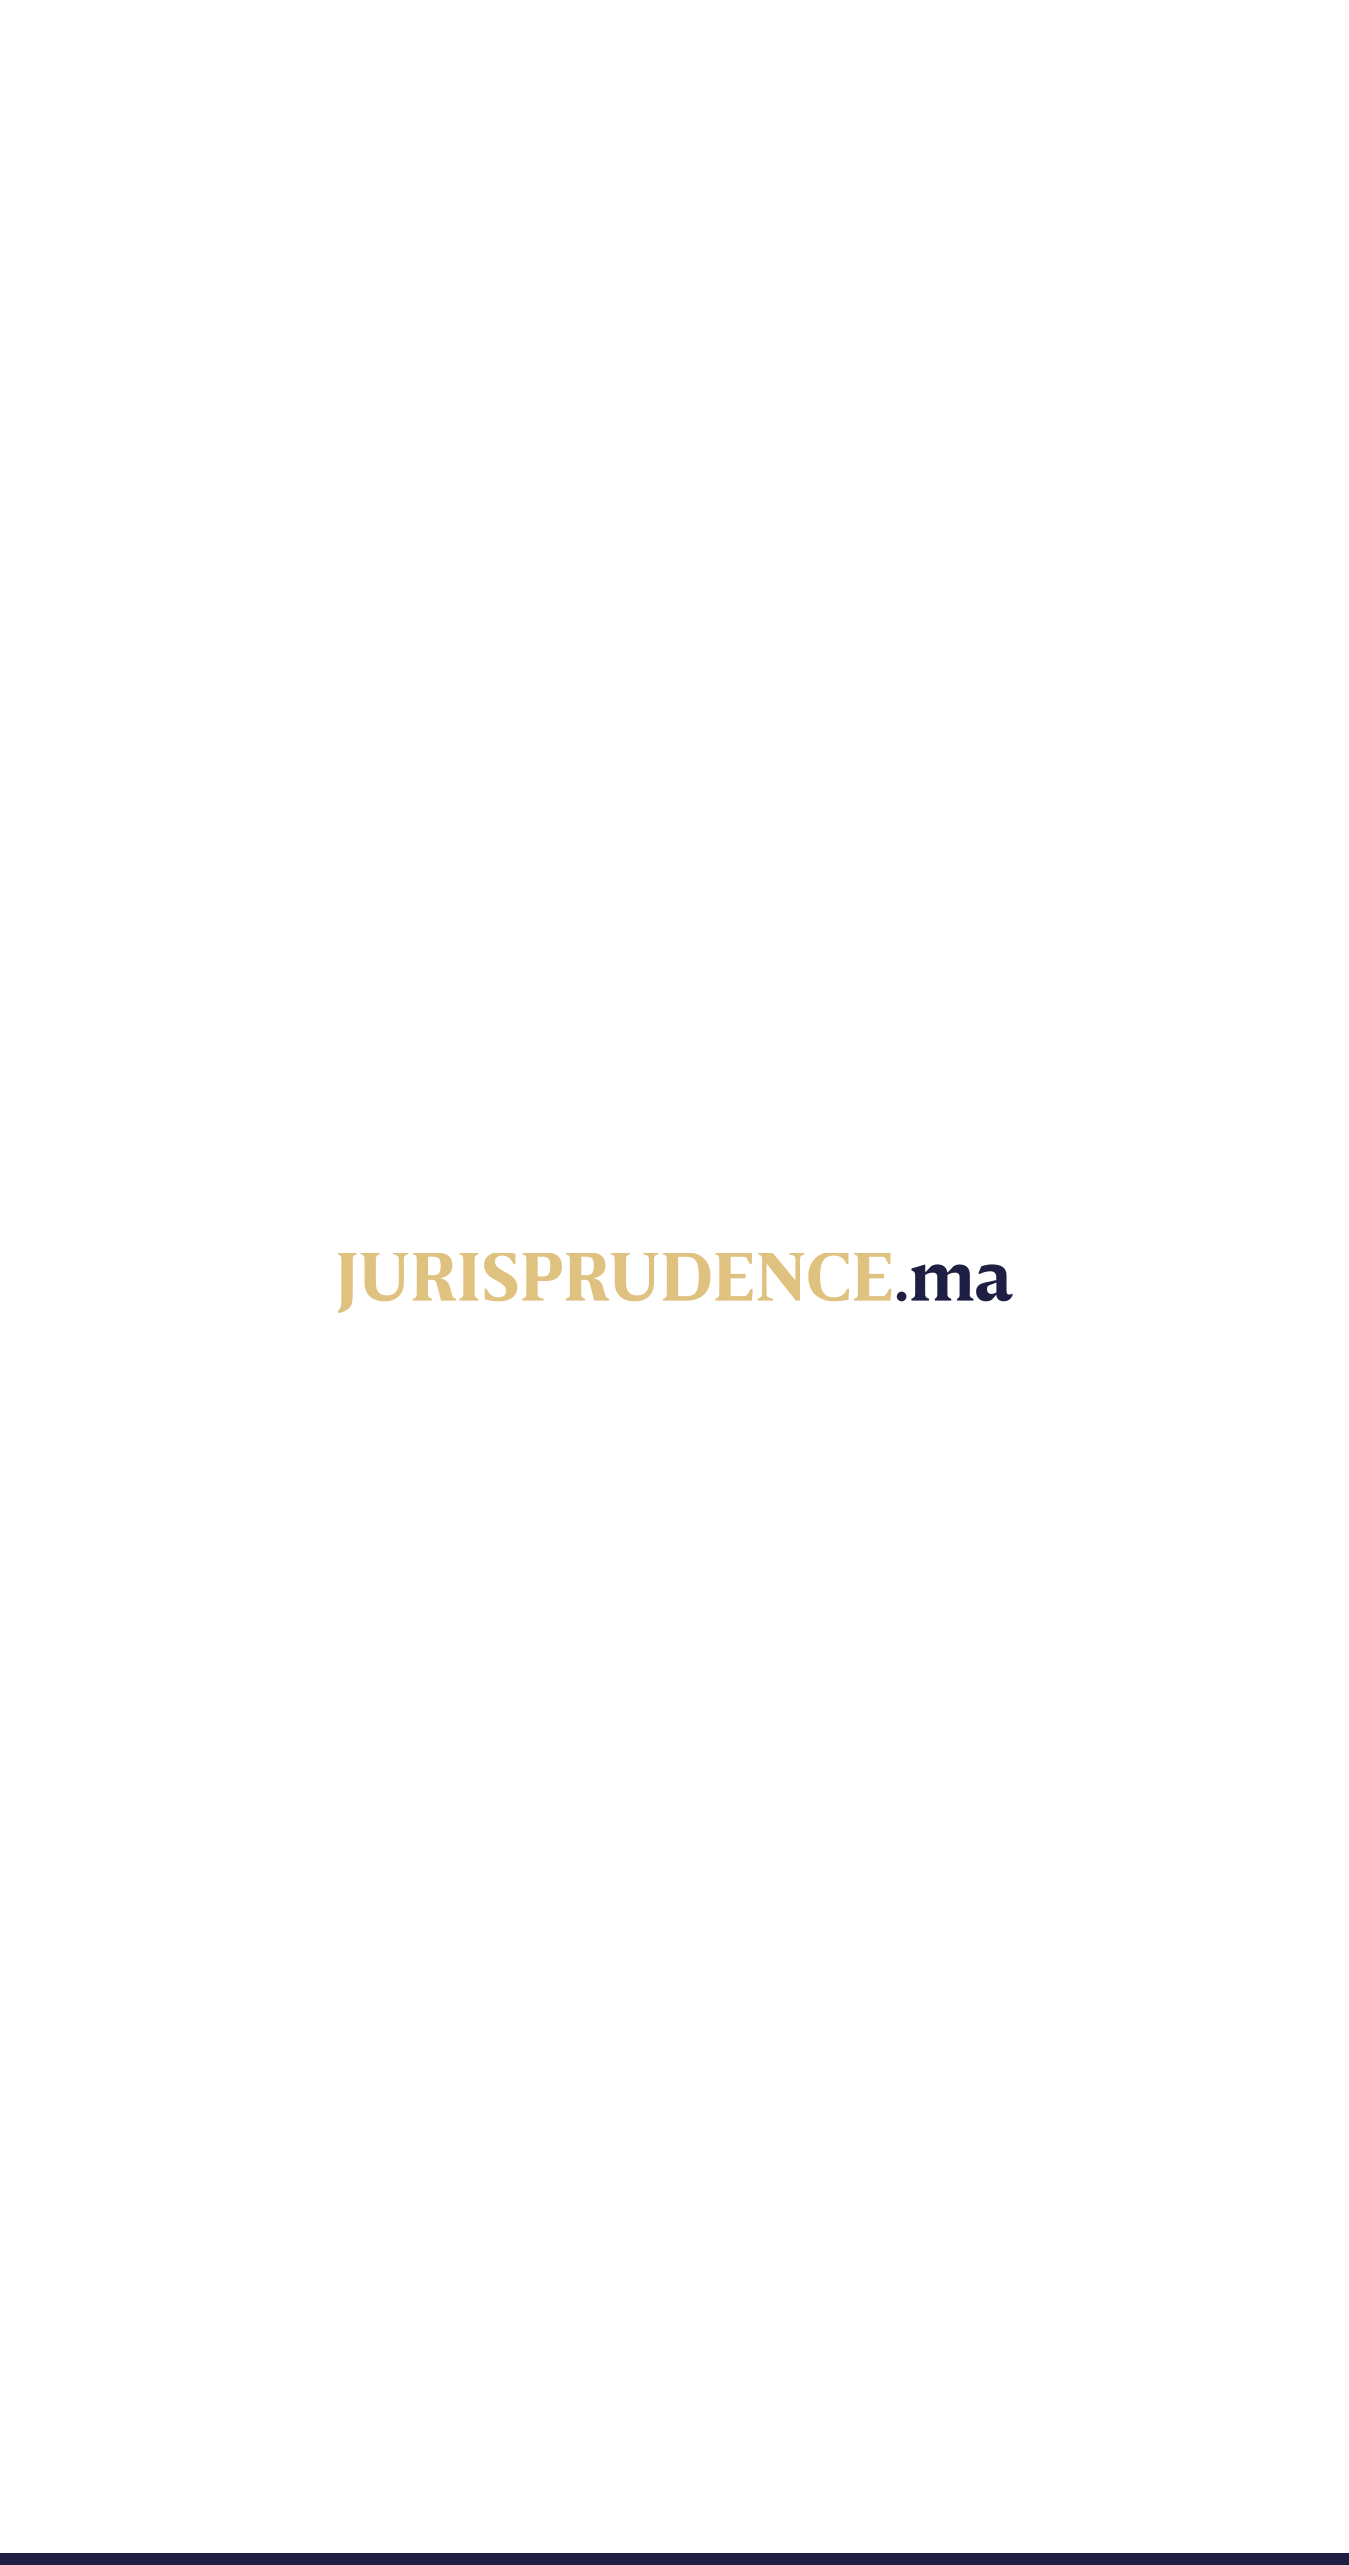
async function draw(canvas) {
	canvas.width = 1349;
	canvas.height = 2565;
	const c = canvas.getContext('2d');
	c.miterLimit = 4;
	c.fontKerning = 'normal';
	async function loadImage(src) {
		const img = new Image();
		img.src = src;
		await img.decode();
		return img;
	}

	c.fillStyle = '#fff';
	c.fillRect(0, 0, 1349, 2565);
	c.drawImage(await loadImage('img1.png'), 338, 1253, 675, 60);
	c.fillStyle = '#1f1e43';
	c.fillRect(0, 2553, 1349, 12);
	c.drawImage(await loadImage('img2.png'), 121, 1477, 11, 19);
	c.drawImage(await loadImage('img3.png'), 1215, 1477, 11, 19);
	c.drawImage(await loadImage('img4.png'), 488, 2385, 375, 35);
}

draw(document.querySelector('canvas'));
